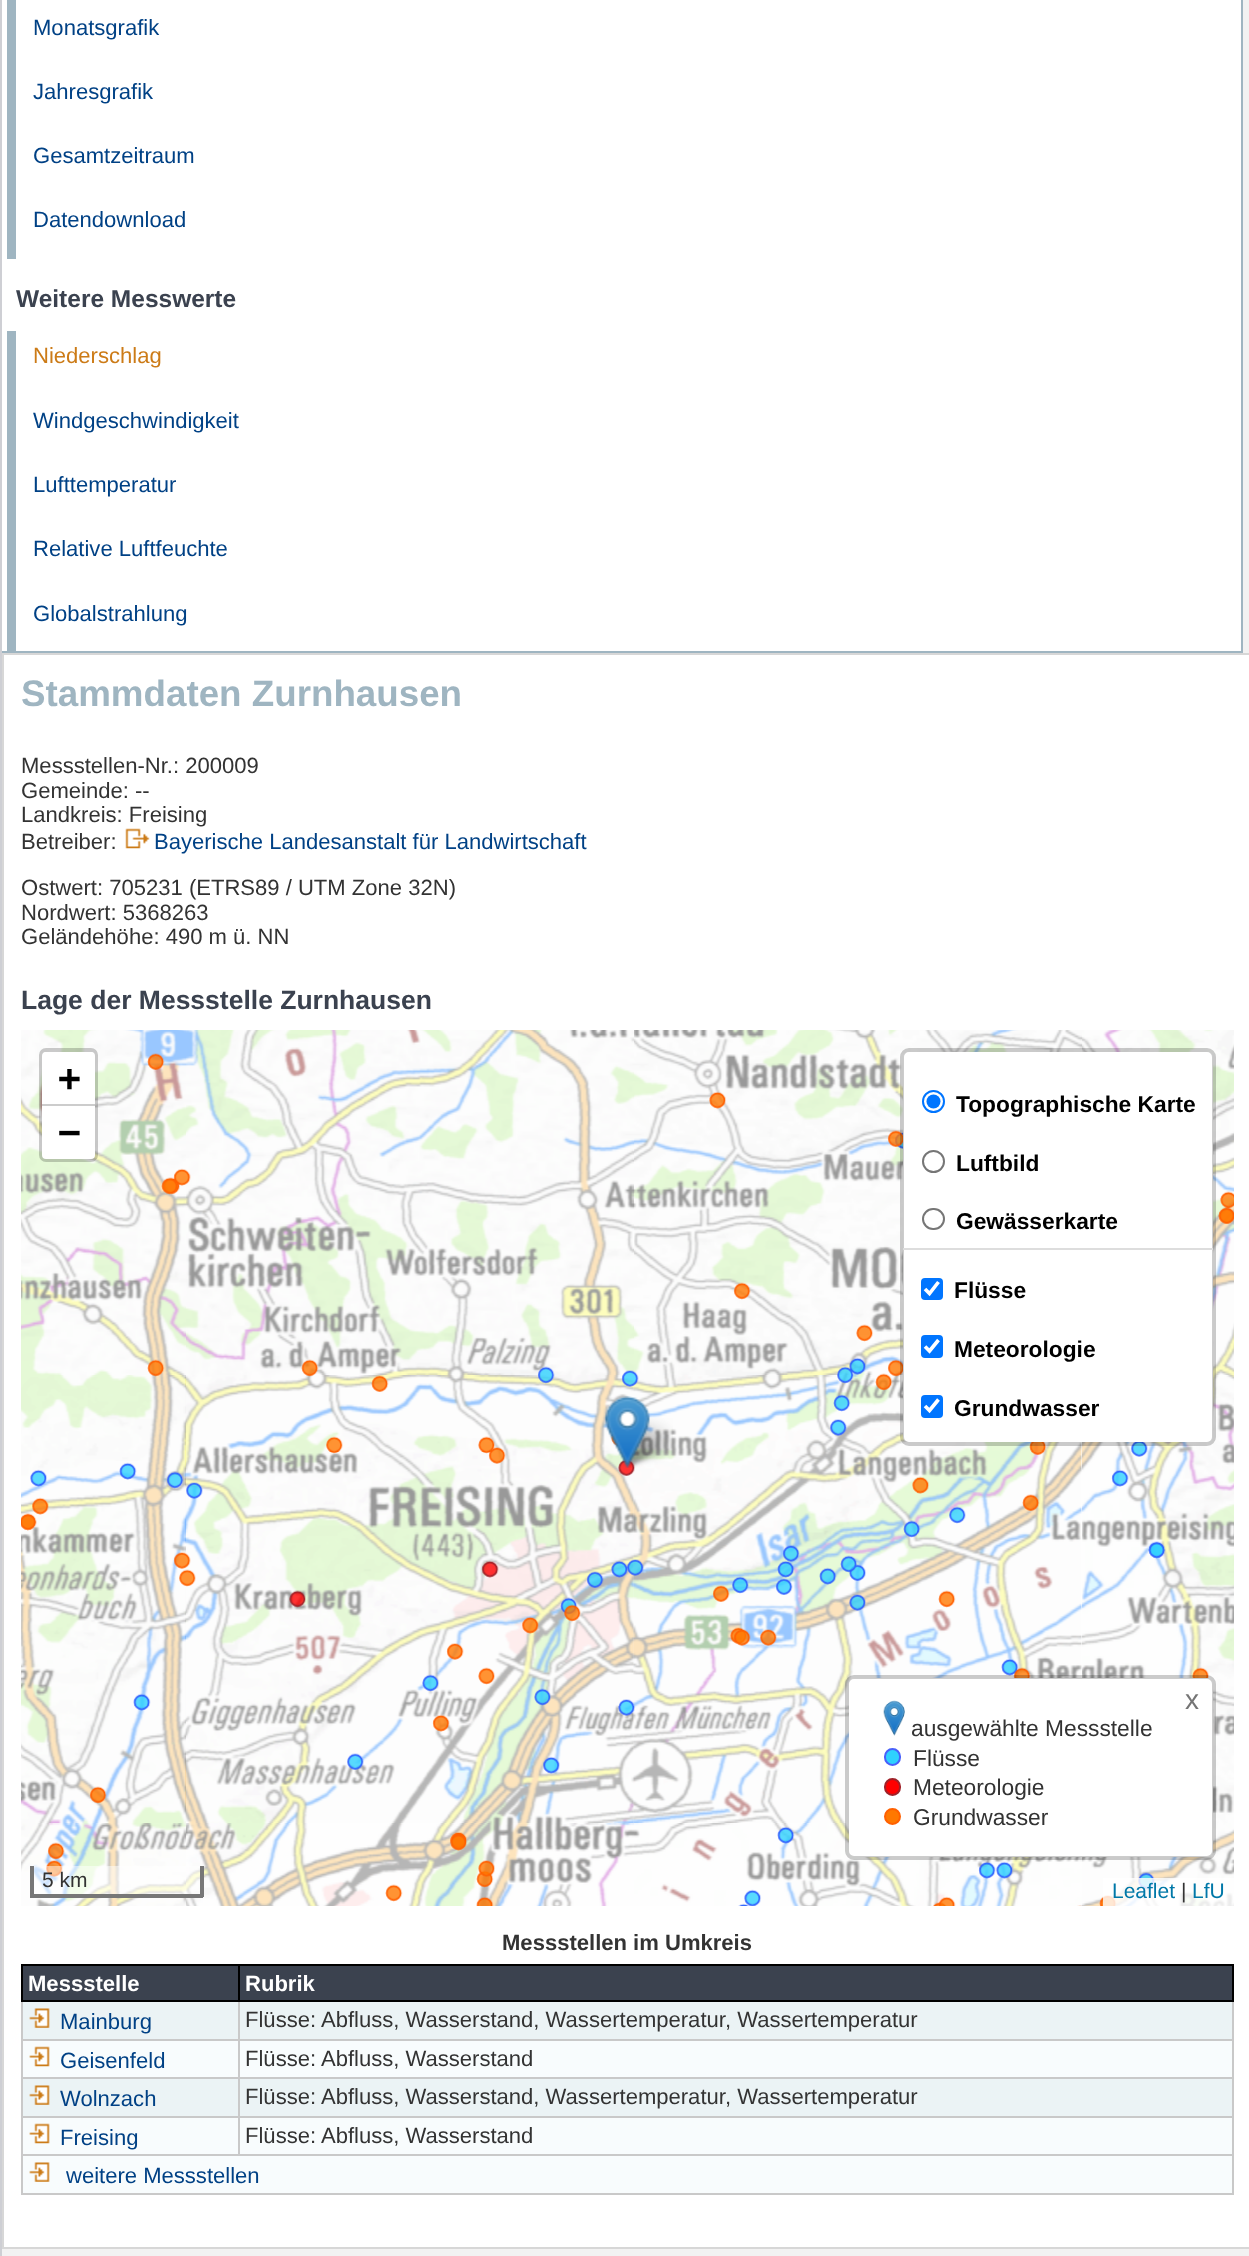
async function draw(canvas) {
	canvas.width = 1249;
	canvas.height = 2256;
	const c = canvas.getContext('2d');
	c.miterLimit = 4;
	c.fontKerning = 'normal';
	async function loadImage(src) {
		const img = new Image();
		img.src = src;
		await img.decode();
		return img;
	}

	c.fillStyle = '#cecfd4';
	c.fillRect(0, 0, 1249, 2256);
	for (const [x, y, w, h, color] of [
		[2, 0, 1247, 2256, '#f2f2f2'],
		[2, 0, 1239, 651, '#fff'],
		[1241, 0, 2, 653, '#9fb5c1'],
		[2, 651, 1241, 2, '#9fb5c1'],
		[7, 0, 9, 259, '#9fb5c1'],
	]) {
		c.fillStyle = color;
		c.fillRect(x, y, w, h);
	}
	c.font = '22.05px Liberation Sans';
	c.fillStyle = '#004185';
	for (const [text, x, y] of [
		['Monatsgrafik', 33, 35],
		['Jahresgrafik', 33, 99],
		['Gesamtzeitraum', 33, 163],
		['Datendownload', 33, 227],
	]) {
		c.fillText(text, x, y);
	}
	c.font = 'bold 24.5px Liberation Sans';
	c.fillStyle = '#3b424f';
	c.fillText('Weitere Messwerte', 16, 307);
	c.fillStyle = '#9fb5c1';
	c.fillRect(7, 331, 9, 320);
	c.font = '22.05px Liberation Sans';
	c.fillStyle = '#cc7b17';
	c.fillText('Niederschlag', 33, 363);
	c.fillStyle = '#004185';
	for (const [text, x, y] of [
		['Windgeschwindigkeit', 33, 428],
		['Lufttemperatur', 33, 492],
		['Relative Luftfeuchte', 33, 556],
		['Globalstrahlung', 33, 621],
	]) {
		c.fillText(text, x, y);
	}
	for (const [x, y, w, h, color] of [
		[4, 655, 1245, 1592, '#fff'],
		[2, 653, 1247, 2, '#d7d7d7'],
		[2, 2247, 1247, 2, '#d7d7d7'],
		[2, 653, 2, 1596, '#d7d7d7'],
	]) {
		c.fillStyle = color;
		c.fillRect(x, y, w, h);
	}
	c.font = 'bold 36.75px Liberation Sans';
	c.fillStyle = '#9fb5c1';
	c.fillText('Stammdaten Zurnhausen', 21, 706);
	c.font = '22.05px Liberation Sans';
	c.fillStyle = '#333';
	for (const [text, x, y] of [
		['Messstellen-Nr.: 200009', 21, 773],
		['Gemeinde: --', 21, 798],
		['Landkreis: Freising', 21, 822],
		['Betreiber:', 21, 849],
	]) {
		c.fillText(text, x, y);
	}
	c.drawImage(await loadImage('img1.png'), 125, 828, 25, 21);
	c.fillStyle = '#004185';
	c.fillText('Bayerische Landesanstalt für Landwirtschaft', 154, 849);
	c.fillStyle = '#333';
	for (const [text, x, y] of [
		['Ostwert: 705231 (ETRS89 / UTM Zone 32N)', 21, 895],
		['Nordwert: 5368263', 21, 920],
		['Geländehöhe: 490 m ü. NN', 21, 944],
	]) {
		c.fillText(text, x, y);
	}
	c.font = 'bold 26.5px Liberation Sans';
	c.fillStyle = '#3b424f';
	c.fillText('Lage der Messstelle Zurnhausen', 21, 1009);
	c.drawImage(await loadImage('img2.png'), 21, 1030, 165, 345);
	c.drawImage(await loadImage('img3.png'), 186, 1030, 448, 345);
	c.drawImage(await loadImage('img4.png'), 634, 1030, 448, 345);
	c.drawImage(await loadImage('img5.png'), 1082, 1030, 152, 345);
	c.drawImage(await loadImage('img7.png'), 185, 1375, 449, 448);
	c.drawImage(await loadImage('img6.png'), 21, 1375, 165, 448);
	c.drawImage(await loadImage('img8.png'), 633, 1375, 449, 448);
	c.drawImage(await loadImage('img9.png'), 1082, 1375, 152, 448);
	c.drawImage(await loadImage('img10.png'), 21, 1823, 165, 83);
	c.drawImage(await loadImage('img11.png'), 186, 1823, 448, 83);
	c.drawImage(await loadImage('img12.png'), 634, 1823, 448, 83);
	c.drawImage(await loadImage('img13.png'), 1082, 1823, 152, 83);
	c.drawImage(await loadImage('img16.png'), 621, 1418, 52, 50);
	c.drawImage(await loadImage('img14.png'), 21, 1053, 1213, 853);
	c.drawImage(await loadImage('img15.png'), 605, 1396, 45, 72);
	c.beginPath();
	c.roundRect(41, 1050, 55, 110, 5);
	c.strokeStyle = '#00000033';
	c.lineWidth = 4;
	c.stroke();
	c.fillStyle = '#fff';
	c.beginPath();
	c.roundRect(42, 1052, 53, 54, [4, 4, 0, 0]);
	c.fill();
	c.fillStyle = '#ccc';
	c.fillRect(42, 1104, 53, 2);
	c.font = 'bold 38px DejaVu Sans Mono';
	c.fillStyle = '#000';
	c.fillText('+', 58, 1091);
	c.fillStyle = '#fff';
	c.beginPath();
	c.roundRect(42, 1106, 53, 53, [0, 0, 4, 4]);
	c.fill();
	c.fillStyle = '#000';
	c.fillText('−', 58, 1145);
	c.fillStyle = '#fff';
	c.beginPath();
	c.roundRect(903, 1052, 310, 390, 5);
	c.fill();
	c.beginPath();
	c.roundRect(902, 1050, 312, 394, 7);
	c.stroke();
	c.beginPath();
	c.arc(933.5, 1101.5, 10.5, 0, 2 * Math.PI);
	c.strokeStyle = '#0075ff';
	c.lineWidth = 2;
	c.stroke();
	c.fillStyle = '#0075ff';
	c.beginPath();
	c.arc(933.5, 1101.5, 7, 0, 2 * Math.PI);
	c.fill();
	c.font = 'bold 22.75px Liberation Sans';
	c.fillStyle = '#000';
	c.fillText('Topographische Karte', 956, 1112);
	c.beginPath();
	c.arc(933.5, 1161.5, 10.5, 0, 2 * Math.PI);
	c.strokeStyle = '#767676';
	c.stroke();
	c.fillText('Luftbild', 956, 1171);
	c.beginPath();
	c.roundRect(923, 1209, 21, 20, 10);
	c.stroke();
	c.fillText('Gewässerkarte', 956, 1229);
	c.fillStyle = '#ddd';
	c.fillRect(903, 1248, 310, 2);
	c.fillStyle = '#0075ff';
	c.beginPath();
	c.roundRect(921, 1278, 22, 22, 4);
	c.fill();
	c.beginPath();
	c.moveTo(925, 1289);
	c.lineTo(929.5, 1293.5);
	c.lineTo(938.5, 1282);
	c.strokeStyle = '#fff';
	c.lineWidth = 3.6;
	c.stroke();
	c.fillStyle = '#000';
	c.fillText('Flüsse', 954, 1298);
	c.fillStyle = '#0075ff';
	c.beginPath();
	c.roundRect(921, 1335, 22, 23, 4);
	c.fill();
	c.beginPath();
	c.moveTo(925, 1346.5);
	c.lineTo(929.5, 1351);
	c.lineTo(938.5, 1340);
	c.stroke();
	c.fillStyle = '#000';
	c.fillText('Meteorologie', 954, 1357);
	c.fillStyle = '#0075ff';
	c.beginPath();
	c.roundRect(921, 1395, 22, 23, 4);
	c.fill();
	c.beginPath();
	c.moveTo(925, 1406);
	c.lineTo(929.5, 1410.5);
	c.lineTo(938.5, 1399.5);
	c.stroke();
	c.fillStyle = '#000';
	c.fillText('Grundwasser', 954, 1416);
	for (const [x, y, w, h, color] of [
		[34, 1866, 166, 28, '#ffffff80'],
		[200, 1866, 4, 31, '#777'],
		[30, 1894, 173, 4, '#777'],
		[30, 1866, 4, 31, '#777'],
	]) {
		c.fillStyle = color;
		c.fillRect(x, y, w, h);
	}
	c.font = '21px Liberation Sans';
	c.fillStyle = '#333';
	c.fillText('5 km', 42, 1887);
	c.fillStyle = '#fff';
	c.beginPath();
	c.roundRect(849, 1678, 364, 179, 5);
	c.fill();
	c.beginPath();
	c.roundRect(847, 1677, 367, 181, 7);
	c.strokeStyle = '#00000033';
	c.lineWidth = 4;
	c.stroke();
	c.font = '28px Liberation Sans';
	c.fillStyle = '#757575';
	c.fillText('x', 1185, 1709);
	c.drawImage(await loadImage('img17.png'), 883, 1700, 22, 36);
	c.font = '22.75px Liberation Sans';
	c.fillStyle = '#333';
	c.fillText('ausgewählte Messstelle', 911, 1736);
	c.fillStyle = '#2ed1fe';
	c.beginPath();
	c.roundRect(885, 1749, 15, 16, 7.5);
	c.fill();
	c.strokeStyle = '#4860fa';
	c.lineWidth = 2;
	c.stroke();
	c.fillStyle = '#333';
	c.fillText('Flüsse', 913, 1766);
	c.fillStyle = '#f00';
	c.beginPath();
	c.roundRect(885, 1779, 15, 16, 7.5);
	c.fill();
	c.strokeStyle = '#a02128';
	c.stroke();
	c.fillStyle = '#333';
	c.fillText('Meteorologie', 913, 1795);
	c.fillStyle = '#ff7800';
	c.beginPath();
	c.arc(892.5, 1816.5, 7.5, 0, 2 * Math.PI);
	c.fill();
	c.strokeStyle = '#ff6000';
	c.stroke();
	c.fillStyle = '#333';
	c.fillText('Grundwasser', 913, 1825);
	c.fillStyle = '#ffffffcc';
	c.fillRect(1103, 1878, 131, 28);
	c.font = '21px Liberation Sans';
	c.fillStyle = '#0078a8';
	c.fillText('Leaflet', 1112, 1898);
	c.fillStyle = '#333';
	c.fillText('|', 1181, 1898);
	c.fillStyle = '#0078a8';
	c.fillText('LfU', 1192, 1898);
	c.font = 'bold 22.05px Liberation Sans';
	c.fillStyle = '#333';
	c.fillText('Messstellen im Umkreis', 502, 1950);
	for (const [x, y, w, h, color] of [
		[23, 1966, 215, 34, '#3b424f'],
		[238, 1964, 996, 2, '#000'],
		[238, 2039, 996, 2, '#c9c9c9'],
		[238, 2077, 996, 2, '#c9c9c9'],
		[238, 2116, 996, 2, '#c9c9c9'],
		[21, 2154, 1213, 2, '#c9c9c9'],
		[1232, 2154, 2, 41, '#c9c9c9'],
		[1232, 2116, 2, 40, '#c9c9c9'],
		[1232, 2077, 2, 41, '#c9c9c9'],
		[1232, 2000, 2, 79, '#c9c9c9'],
		[1232, 1964, 2, 38, '#000'],
		[23, 2002, 1209, 37, '#ebf3f5'],
		[23, 2041, 1209, 36, '#f8fcfd'],
		[23, 2079, 1209, 37, '#ebf3f5'],
		[23, 2118, 1209, 36, '#f8fcfd'],
		[238, 2116, 2, 40, '#c9c9c9'],
		[21, 2116, 219, 2, '#c9c9c9'],
		[238, 2077, 2, 41, '#c9c9c9'],
		[21, 2077, 219, 2, '#c9c9c9'],
		[238, 2039, 2, 40, '#c9c9c9'],
		[21, 2039, 219, 2, '#c9c9c9'],
		[238, 2000, 2, 41, '#c9c9c9'],
		[238, 2000, 996, 2, '#000'],
		[238, 1964, 2, 38, '#000'],
		[21, 1964, 219, 2, '#000'],
		[21, 2193, 1213, 2, '#c9c9c9'],
		[21, 2154, 2, 41, '#c9c9c9'],
		[21, 2116, 2, 40, '#c9c9c9'],
		[21, 2077, 2, 41, '#c9c9c9'],
		[21, 2000, 2, 79, '#c9c9c9'],
		[21, 2000, 219, 2, '#000'],
		[21, 1964, 2, 38, '#000'],
	]) {
		c.fillStyle = color;
		c.fillRect(x, y, w, h);
	}
	c.fillStyle = '#fff';
	c.fillText('Messstelle', 28, 1991);
	c.fillStyle = '#3b424f';
	c.fillRect(240, 1966, 992, 34);
	c.fillStyle = '#fff';
	c.fillText('Rubrik', 245, 1991);
	c.drawImage(await loadImage('img18.png'), 29, 2008, 21, 20);
	c.font = '22.05px Liberation Sans';
	c.fillStyle = '#004185';
	c.fillText('Mainburg', 60, 2029);
	c.fillStyle = '#333';
	c.fillText('Flüsse: Abfluss, Wasserstand, Wassertemperatur, Wassertemperatur', 245, 2027);
	c.drawImage(await loadImage('img19.png'), 29, 2046, 21, 21);
	c.fillStyle = '#004185';
	c.fillText('Geisenfeld', 60, 2068);
	c.fillStyle = '#333';
	c.fillText('Flüsse: Abfluss, Wasserstand', 245, 2066);
	c.drawImage(await loadImage('img18.png'), 29, 2085, 21, 20);
	c.fillStyle = '#004185';
	c.fillText('Wolnzach', 60, 2106);
	c.fillStyle = '#333';
	c.fillText('Flüsse: Abfluss, Wasserstand, Wassertemperatur, Wassertemperatur', 245, 2104);
	c.drawImage(await loadImage('img19.png'), 29, 2123, 21, 21);
	c.fillStyle = '#004185';
	c.fillText('Freising', 60, 2145);
	c.fillStyle = '#333';
	c.fillText('Flüsse: Abfluss, Wasserstand', 245, 2143);
	c.fillStyle = '#f8fcfd';
	c.fillRect(23, 2156, 1209, 37);
	c.drawImage(await loadImage('img20.png'), 29, 2162, 21, 20);
	c.fillStyle = '#004185';
	c.fillText('weitere Messstellen', 66, 2183);
}

draw(document.querySelector('canvas'));
